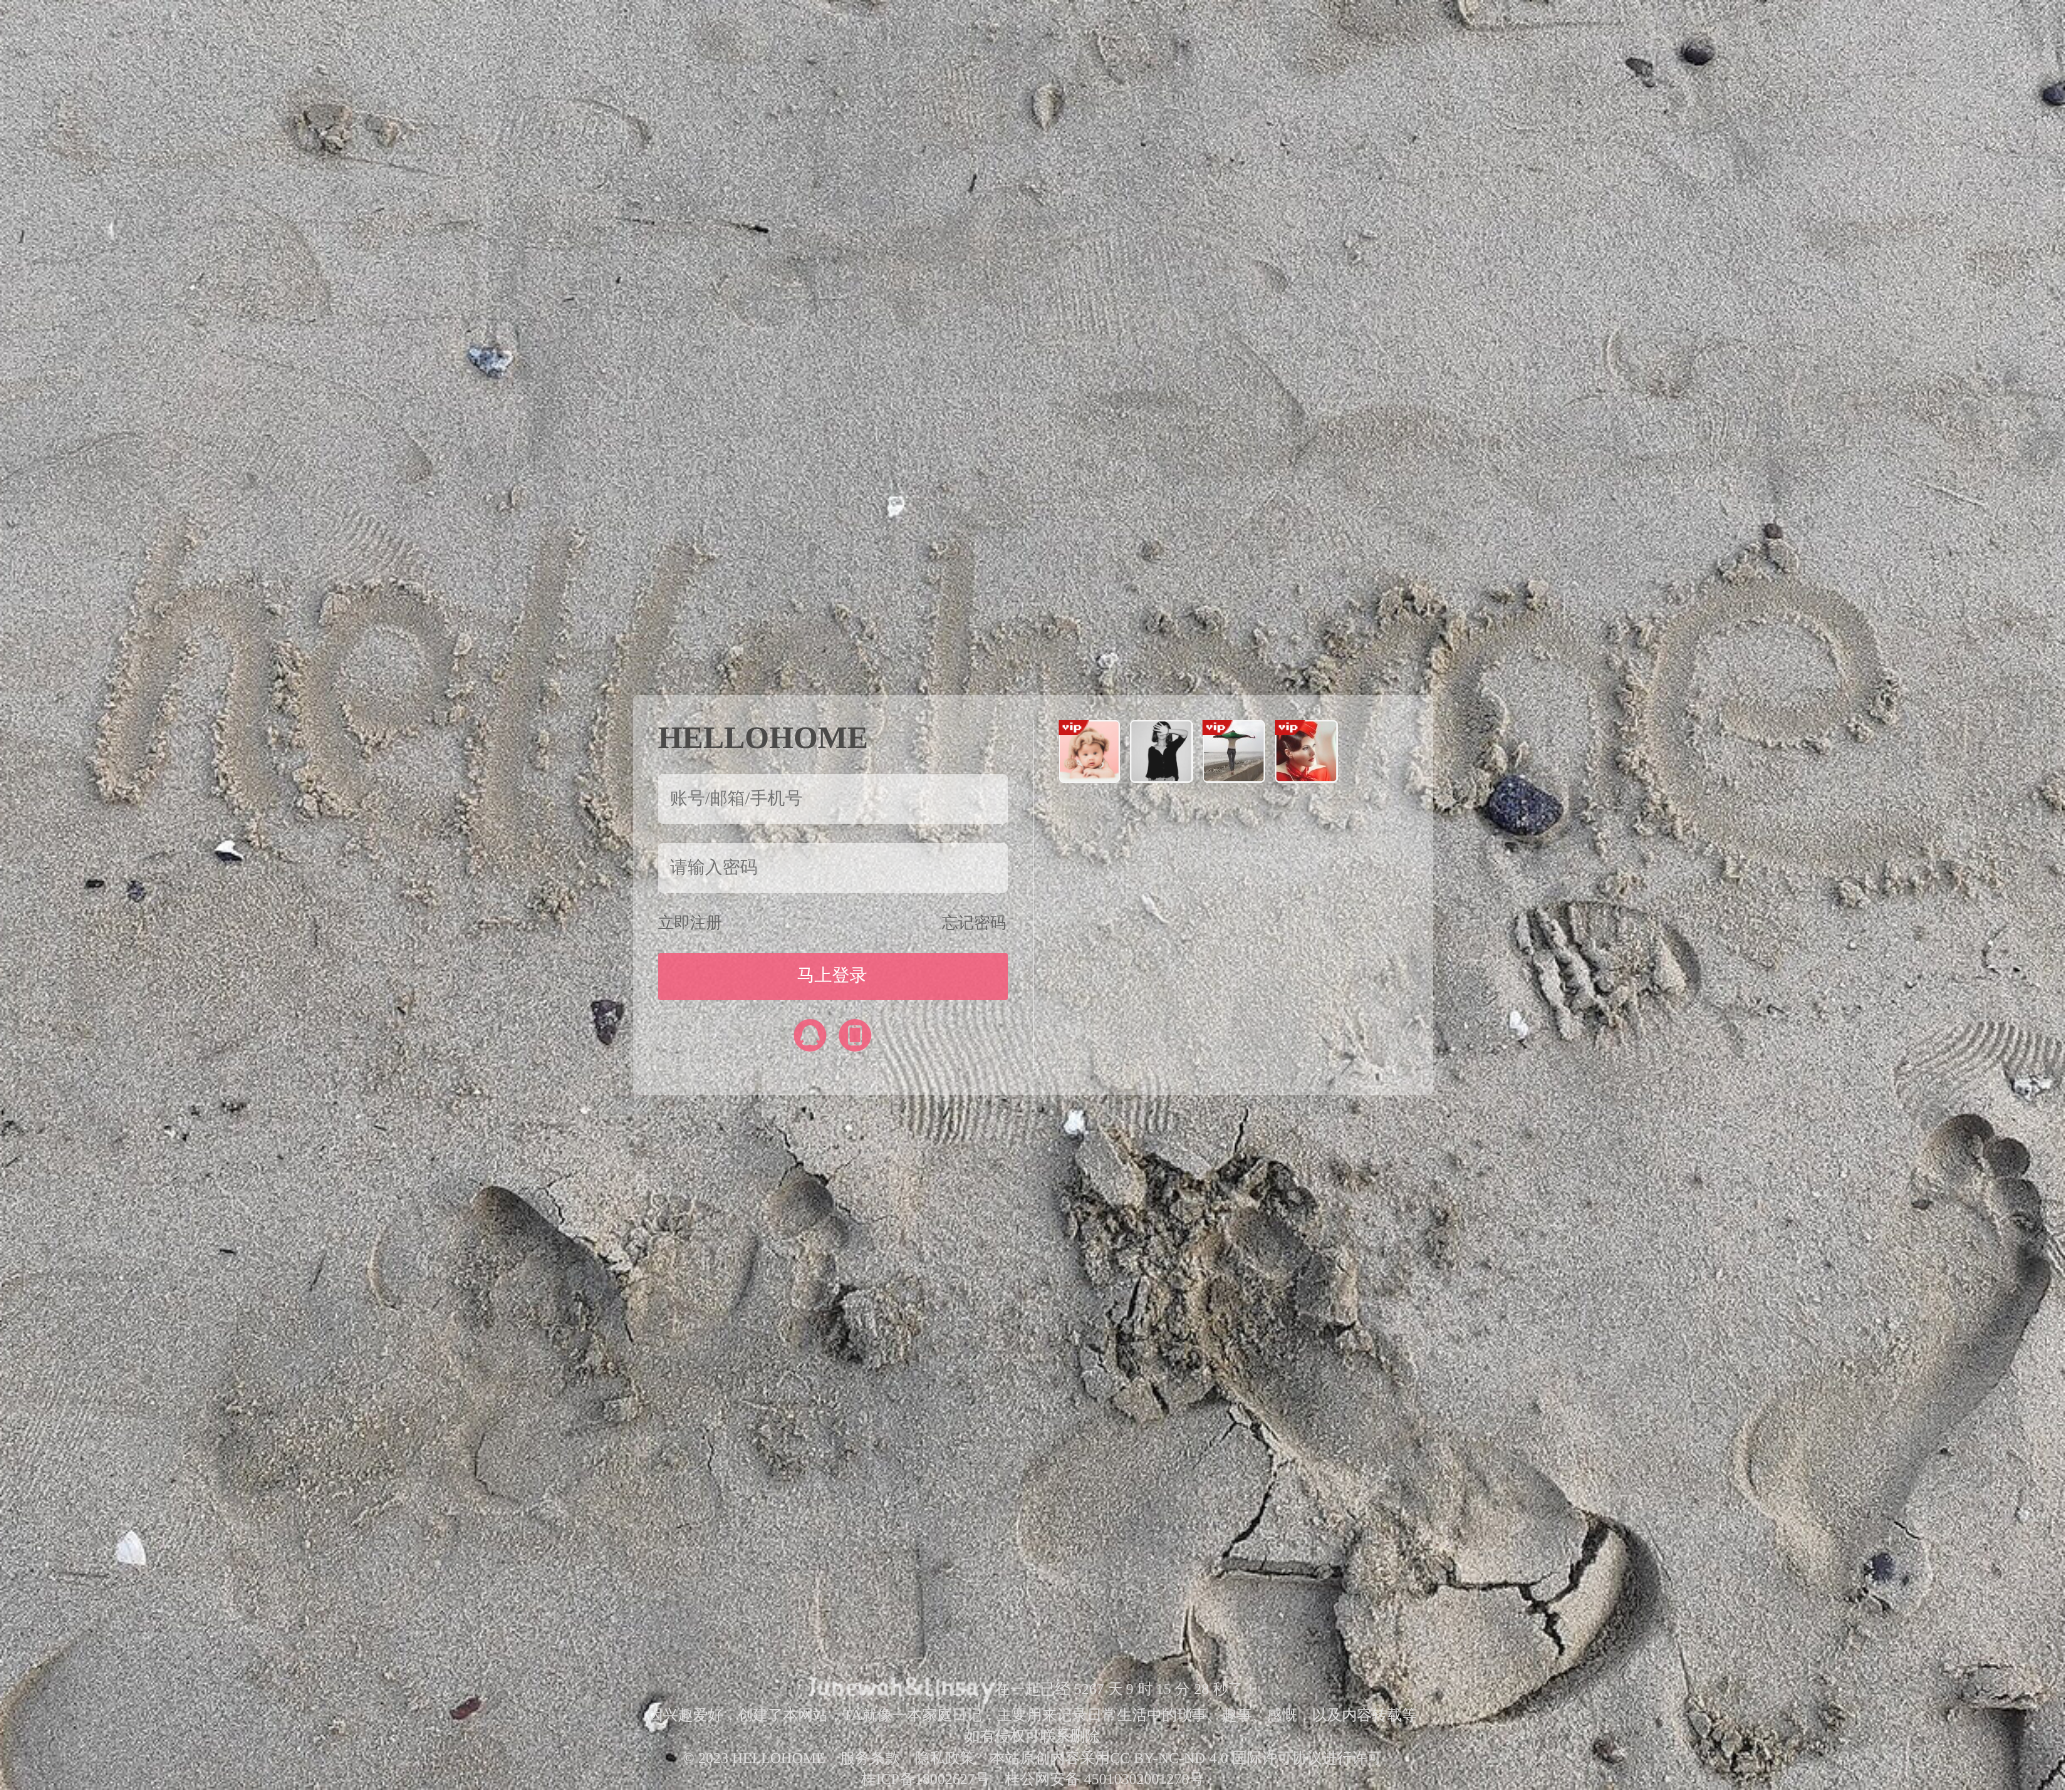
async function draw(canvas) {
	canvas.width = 2065;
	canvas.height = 1790;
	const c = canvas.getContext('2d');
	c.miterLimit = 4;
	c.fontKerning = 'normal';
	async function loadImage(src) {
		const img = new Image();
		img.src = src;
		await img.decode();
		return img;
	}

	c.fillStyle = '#fff';
	c.fillRect(0, 0, 2065, 1790);
	c.drawImage(await loadImage('img1.png'), 0, 0, 2065, 1790);
	c.fillStyle = '#fcfcfc61';
	c.beginPath();
	c.roundRect(633, 695, 800, 400, 5);
	c.fill();
	c.fillStyle = '#f5f5f580';
	c.fillRect(1033, 720, 1, 350);
	c.font = 'bold 31.25px Liberation Serif';
	c.fillStyle = '#4b4a49';
	c.fillText('HELLOHOME', 658, 748);
	c.fillStyle = '#ffffff91';
	c.beginPath();
	c.roundRect(658, 774, 350, 50, 5);
	c.fill();
	c.font = '500 17.5px WenQuanYi Zen Hei';
	c.fillStyle = '#757575';
	c.fillText('账号', 670, 804);
	c.font = '17.5px Liberation Serif';
	c.fillText('/', 705, 804);
	c.font = '500 17.5px WenQuanYi Zen Hei';
	c.fillText('邮箱', 710, 804);
	c.font = '17.5px Liberation Serif';
	c.fillText('/', 745, 804);
	c.font = '500 17.5px WenQuanYi Zen Hei';
	c.fillText('手机号', 750, 804);
	c.fillStyle = '#ffffff91';
	c.beginPath();
	c.roundRect(658, 843, 350, 50, 5);
	c.fill();
	c.fillStyle = '#757575';
	c.fillText('请输入密码', 670, 873);
	c.font = '500 16px WenQuanYi Zen Hei';
	c.fillStyle = '#666';
	c.fillText('立即注册', 658, 928);
	c.fillText('忘记密码', 942, 928);
	c.fillStyle = '#f35d7ce3';
	c.beginPath();
	c.roundRect(658, 953, 350, 47, 2.5);
	c.fill();
	c.font = '500 17.5px WenQuanYi Zen Hei';
	c.fillStyle = '#fff';
	c.fillText('马上登录', 797, 981);
	c.drawImage(await loadImage('img2.png'), 793, 1019, 34, 33);
	c.drawImage(await loadImage('img3.png'), 838, 1019, 34, 33);
	c.fillStyle = '#f7f7f7e6';
	c.beginPath();
	c.roundRect(1059, 720, 61, 63, 5);
	c.fill();
	c.beginPath();
	c.roundRect(1059.5, 720.5, 60, 62, 4.5);
	c.strokeStyle = '#f7f7f7e6';
	c.stroke();
	c.drawImage(await loadImage('img5.png'), 1060, 721, 59, 60);
	c.drawImage(await loadImage('img4.png'), 1058, 720, 31, 15);
	c.beginPath();
	c.roundRect(1130, 720, 63, 63, 5);
	c.fill();
	c.beginPath();
	c.roundRect(1130.5, 720.5, 62, 62, 4.5);
	c.stroke();
	c.drawImage(await loadImage('img6.png'), 1131, 721, 60, 61);
	c.beginPath();
	c.roundRect(1203, 720, 62, 63, 5);
	c.fill();
	c.beginPath();
	c.roundRect(1203.5, 720.5, 61, 62, 4.5);
	c.stroke();
	c.drawImage(await loadImage('img8.png'), 1203, 721, 61, 61);
	c.drawImage(await loadImage('img7.png'), 1202, 720, 31, 15);
	c.beginPath();
	c.roundRect(1275, 720, 63, 63, 5);
	c.fill();
	c.beginPath();
	c.roundRect(1275.5, 720.5, 62, 62, 4.5);
	c.stroke();
	c.drawImage(await loadImage('img9.png'), 1276, 721, 61, 61);
	c.drawImage(await loadImage('img10.png'), 1275, 720, 31, 15);
	c.drawImage(await loadImage('img11.png'), 807, 1676, 188, 29);
	c.font = '500 15px WenQuanYi Zen Hei';
	c.fillStyle = '#e2e1e1';
	c.fillText('在一起已经', 995, 1694);
	c.font = '15px Liberation Serif';
	c.fillText('5267', 1074, 1694);
	c.font = '500 15px WenQuanYi Zen Hei';
	c.fillStyle = '#dddbda';
	c.fillText('天', 1108, 1694);
	c.font = '15px Liberation Serif';
	c.fillStyle = '#d6d5d4';
	c.fillText('9', 1126, 1694);
	c.font = '500 15px WenQuanYi Zen Hei';
	c.fillText('时', 1138, 1694);
	c.font = '15px Liberation Serif';
	c.fillStyle = '#dddbda';
	c.fillText('15', 1156, 1694);
	c.font = '500 15px WenQuanYi Zen Hei';
	c.fillText('分', 1175, 1694);
	c.font = '15px Liberation Serif';
	c.fillStyle = '#e2e1e1';
	c.fillText('28', 1194, 1694);
	c.font = '500 15px WenQuanYi Zen Hei';
	c.fillStyle = '#dddbda';
	c.fillText('秒了！', 1213, 1694);
	c.fillStyle = '#e2e1e1';
	c.fillText('因兴趣爱好，创建了本网站，', 648, 1720);
	c.font = '15px Liberation Serif';
	c.fillText('TA', 843, 1720);
	c.font = '500 15px WenQuanYi Zen Hei';
	c.fillText('就像一本家庭日记，主要用来记录日常生活中的琐事、趣事、感慨，以及内容转载等', 862, 1720);
	c.fillText('如有侵权可联系删除', 965, 1741);
	c.font = '15px Liberation Serif';
	c.fillText('© 2023 HELLOHOME', 683, 1763);
	c.font = '500 15px WenQuanYi Zen Hei';
	for (const [text, x, y] of [
		['服务条款', 840, 1763],
		['隐私政策', 915, 1763],
		['本站原创内容采用', 990, 1763],
	]) {
		c.fillText(text, x, y);
	}
	c.font = '15px Liberation Serif';
	c.fillText('CC BY-NC-ND 4.0', 1110, 1763);
	c.font = '500 15px WenQuanYi Zen Hei';
	for (const [text, x, y] of [
		['国际许可协议', 1232, 1763],
		['进行许可', 1322, 1763],
		['桂', 861, 1784],
	]) {
		c.fillText(text, x, y);
	}
	c.font = '15px Liberation Serif';
	c.fillText('ICP', 876, 1784);
	c.font = '500 15px WenQuanYi Zen Hei';
	c.fillText('备', 900, 1784);
	c.font = '15px Liberation Serif';
	c.fillText('18002627', 915, 1784);
	c.font = '500 15px WenQuanYi Zen Hei';
	c.fillText('号', 975, 1784);
	c.fillText('桂公网安备', 1005, 1784);
	c.font = '15px Liberation Serif';
	c.fillStyle = '#dddbda';
	c.fillText('45010302001278', 1084, 1784);
	c.font = '500 15px WenQuanYi Zen Hei';
	c.fillStyle = '#e2e1e1';
	c.fillText('号', 1189, 1784);
}

draw(document.querySelector('canvas'));
